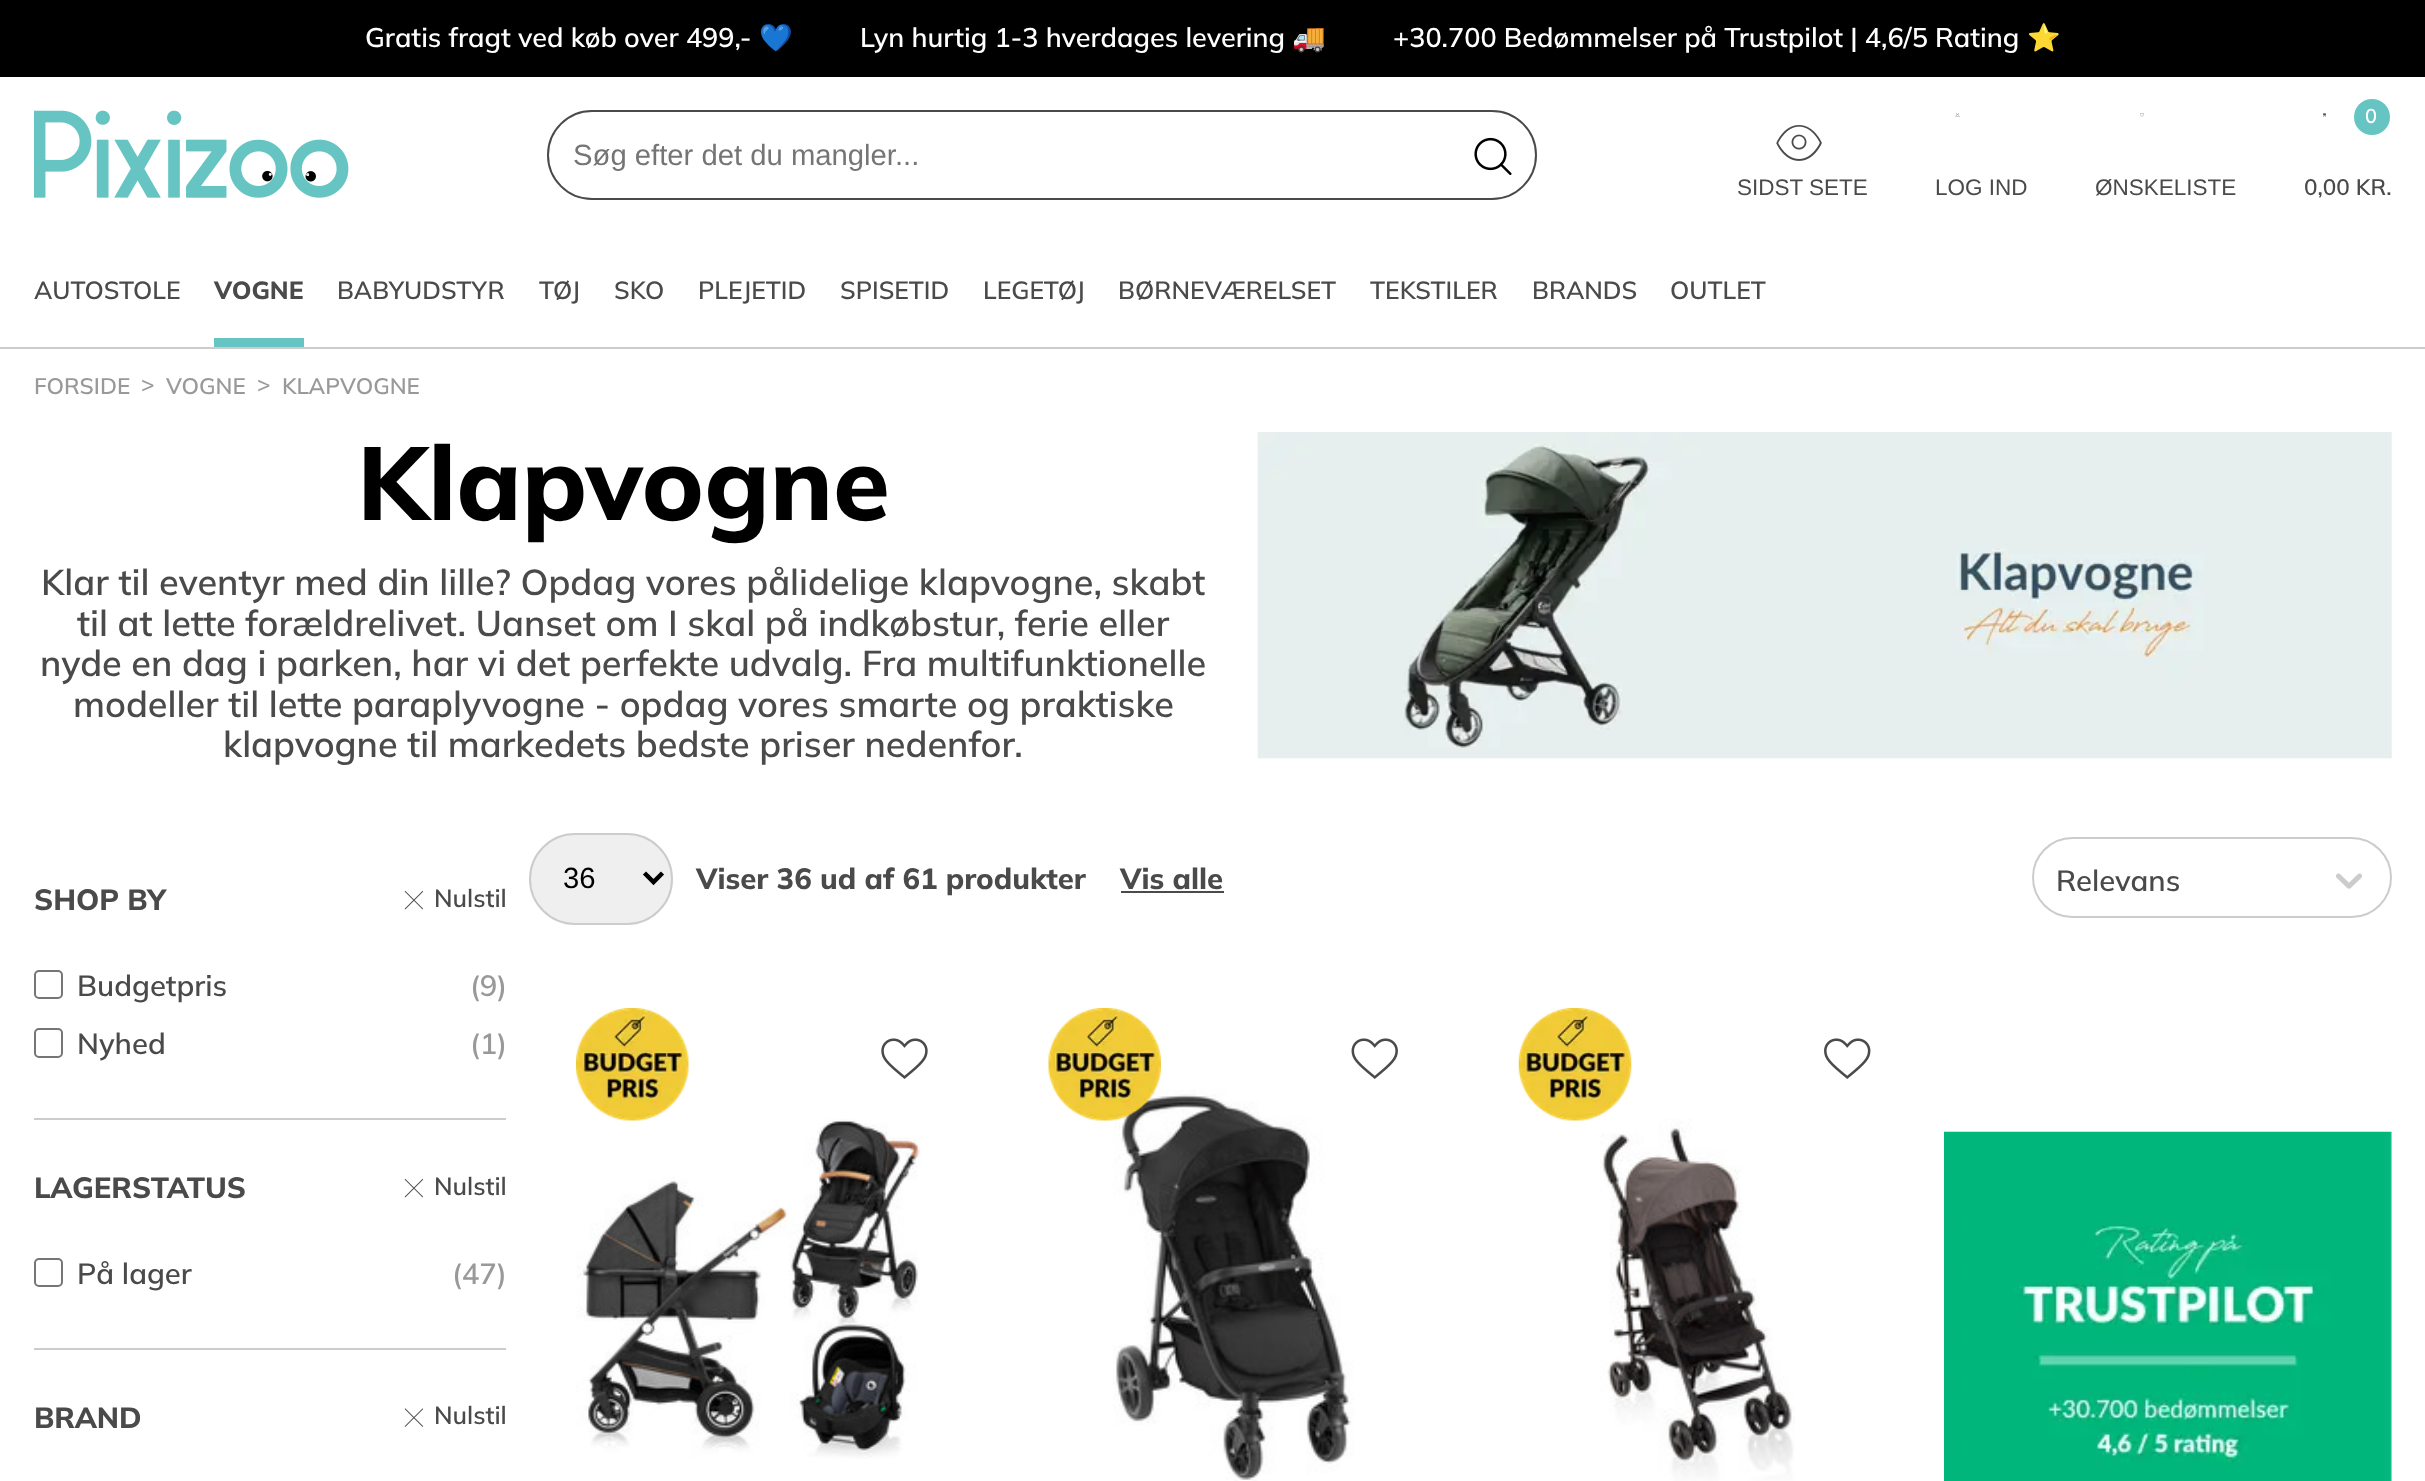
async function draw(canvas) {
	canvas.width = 2425;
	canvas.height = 1481;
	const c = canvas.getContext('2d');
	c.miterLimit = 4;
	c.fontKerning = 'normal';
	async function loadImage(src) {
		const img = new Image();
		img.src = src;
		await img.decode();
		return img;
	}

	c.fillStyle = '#fff';
	c.fillRect(0, 0, 2425, 1481);
	c.fillStyle = '#ccc';
	c.fillRect(0, 347, 2425, 2);
	c.fillStyle = '#000';
	c.fillRect(0, 0, 2425, 77);
	c.font = '600 27px Mulish';
	c.fillStyle = '#fff';
	c.fillText('Gratis fragt ved køb over 499,-', 365, 47);
	c.font = 'bold 27px Noto Color Emoji';
	c.fillText('💙', 759, 47);
	c.font = '600 27px Mulish';
	c.fillText('Lyn hurtig 1-3 hverdages levering', 860, 47);
	c.font = 'bold 27px Noto Color Emoji';
	c.fillText('🚚', 1292, 47);
	c.font = '600 27px Mulish';
	c.fillText('+30.700 Bedømmelser på Trustpilot | 4,6/5 Rating', 1393, 47);
	c.font = 'bold 27px Noto Color Emoji';
	c.fillText('⭐️', 2027, 47);
	c.drawImage(await loadImage('img1.png'), 34, 110, 315, 88);
	c.beginPath();
	c.roundRect(548, 111, 988, 88, 44);
	c.strokeStyle = '#4a4a4a';
	c.lineWidth = 2;
	c.stroke();
	c.font = '29.25px Liberation Sans';
	c.fillStyle = '#757575';
	c.fillText('Søg efter det du mangler...', 573, 165);
	c.drawImage(await loadImage('img2.png'), 1474, 137, 38, 38);
	c.drawImage(await loadImage('img3.png'), 1776, 125, 46, 36);
	c.font = '22.5px Liberation Sans';
	c.fillStyle = '#4a4a4a';
	c.fillText('SIDST SETE', 1737, 195);
	c.drawImage(await loadImage('img4.png'), 1955, 113, 5, 4);
	c.fillText('LOG IND', 1935, 195);
	c.drawImage(await loadImage('img5.png'), 2140, 113, 4, 4);
	c.fillText('ØNSKELISTE', 2095, 195);
	c.drawImage(await loadImage('img6.png'), 2322, 113, 4, 4);
	c.fillStyle = '#66c4c3';
	c.beginPath();
	c.arc(2372, 117, 18, 0, 2 * Math.PI);
	c.fill();
	c.font = '600 20px Mulish';
	c.fillStyle = '#fff';
	c.fillText('0', 2365, 123);
	c.font = '600 22.5px Mulish';
	c.fillStyle = '#4a4a4a';
	c.fillText('0,00 KR.', 2304, 195);
	c.font = '600 24.75px Mulish';
	c.fillText('AUTOSTOLE', 34, 299);
	c.fillStyle = '#66c4c3';
	c.fillRect(214, 338, 90, 9);
	c.font = '800 24.75px Mulish';
	c.fillStyle = '#4a4a4a';
	c.fillText('VOGNE', 214, 299);
	c.font = '600 24.75px Mulish';
	for (const [text, x, y] of [
		['BABYUDSTYR', 337, 299],
		['TØJ', 539, 299],
		['SKO', 614, 299],
		['PLEJETID', 698, 299],
		['SPISETID', 840, 299],
		['LEGETØJ', 983, 299],
		['BØRNEVÆRELSET', 1118, 299],
		['TEKSTILER', 1370, 299],
		['BRANDS', 1532, 299],
		['OUTLET', 1670, 299],
	]) {
		c.fillText(text, x, y);
	}
	c.font = '600 22.5px Mulish';
	c.fillStyle = '#999';
	for (const [text, x, y] of [
		['FORSIDE', 34, 394],
		['>', 141, 392],
		['VOGNE', 166, 394],
		['>', 257, 392],
		['KLAPVOGNE', 282, 394],
	]) {
		c.fillText(text, x, y);
	}
	c.font = '800 103.5px Mulish';
	c.fillStyle = '#000';
	c.fillText('Klapvogne', 357, 520);
	c.font = '600 36px Mulish';
	c.fillStyle = '#4a4a4a';
	for (const [text, x, y] of [
		['Klar til eventyr med din lille? Opdag vores pålidelige klapvogne, skabt', 41, 595],
		['til at lette forældrelivet. Uanset om I skal på indkøbstur, ferie eller', 77, 636],
		['nyde en dag i parken, har vi det perfekte udvalg. Fra multifunktionelle', 40, 676],
		['modeller til lette paraplyvogne - opdag vores smarte og praktiske', 73, 717],
		['klapvogne til markedets bedste priser nedenfor.', 223, 757],
	]) {
		c.fillText(text, x, y);
	}
	c.drawImage(await loadImage('img7.png'), 1257, 432, 1135, 327);
	c.fillStyle = '#efefef';
	c.beginPath();
	c.roundRect(530, 834, 142, 90, 45);
	c.fill();
	c.strokeStyle = '#ccc';
	c.stroke();
	c.beginPath();
	c.moveTo(644.5, 873);
	c.lineTo(653.5, 882);
	c.lineTo(662.5, 873);
	c.strokeStyle = '#000';
	c.lineWidth = 4.5;
	c.stroke();
	c.font = '29.25px Liberation Sans';
	c.fillStyle = '#000';
	c.fillText('36', 563, 888);
	c.font = '800 29.25px Mulish';
	c.fillStyle = '#4a4a4a';
	c.fillText('Viser 36 ud af 61 produkter', 696, 889);
	c.fillText('Vis alle', 1120, 889);
	c.fillRect(1121, 891, 103, 2);
	c.beginPath();
	c.roundRect(2033, 838, 358, 79, 39.5);
	c.strokeStyle = '#ccc';
	c.lineWidth = 2;
	c.stroke();
	c.font = '600 29.25px Mulish';
	c.fillText('Relevans', 2056, 891);
	c.drawImage(await loadImage('img8.png'), 2336, 873, 26, 16);
	c.drawImage(await loadImage('img11.png'), 576, 1119, 345, 340);
	c.drawImage(await loadImage('img9.png'), 576, 1008, 113, 113);
	c.drawImage(await loadImage('img10.png'), 881, 1038, 47, 41);
	c.drawImage(await loadImage('img14.png'), 1113, 1089, 241, 392);
	c.drawImage(await loadImage('img12.png'), 1048, 1008, 113, 113);
	c.drawImage(await loadImage('img13.png'), 1351, 1038, 47, 41);
	c.drawImage(await loadImage('img17.png'), 1600, 1119, 195, 362);
	c.drawImage(await loadImage('img15.png'), 1518, 1008, 114, 113);
	c.drawImage(await loadImage('img16.png'), 1824, 1038, 47, 41);
	c.drawImage(await loadImage('img18.png'), 1944, 1131, 448, 350);
	c.fillStyle = '#ccc';
	c.fillRect(34, 1118, 472, 2);
	c.font = '800 29.25px Mulish';
	c.fillStyle = '#4a4a4a';
	c.fillText('SHOP BY', 34, 910);
	c.drawImage(await loadImage('img19.png'), 404, 891, 20, 19);
	c.font = '600 24.75px Mulish';
	c.fillText('Nulstil', 434, 907);
	c.beginPath();
	c.roundRect(35, 971, 27, 27, 4);
	c.strokeStyle = '#767676';
	c.stroke();
	c.font = '600 29.25px Mulish';
	c.fillText('Budgetpris', 77, 996);
	c.fillStyle = '#999';
	c.fillText('(9)', 470, 996);
	c.beginPath();
	c.roundRect(35, 1029, 27, 28, 4);
	c.stroke();
	c.fillStyle = '#4a4a4a';
	c.fillText('Nyhed', 77, 1054);
	c.fillStyle = '#999';
	c.fillText('(1)', 470, 1054);
	c.fillStyle = '#ccc';
	c.fillRect(34, 1348, 472, 2);
	c.font = '800 29.25px Mulish';
	c.fillStyle = '#4a4a4a';
	c.fillText('LAGERSTATUS', 34, 1198);
	c.drawImage(await loadImage('img19.png'), 404, 1179, 20, 19);
	c.font = '600 24.75px Mulish';
	c.fillText('Nulstil', 434, 1195);
	c.beginPath();
	c.roundRect(35, 1259, 27, 27, 4);
	c.stroke();
	c.font = '600 29.25px Mulish';
	c.fillText('På lager', 77, 1284);
	c.fillStyle = '#999';
	c.fillText('(47)', 452, 1284);
	c.font = '800 29.25px Mulish';
	c.fillStyle = '#4a4a4a';
	c.fillText('BRAND', 34, 1428);
	c.drawImage(await loadImage('img20.png'), 404, 1408, 20, 19);
	c.font = '600 24.75px Mulish';
	c.fillText('Nulstil', 434, 1424);
}

draw(document.querySelector('canvas'));
